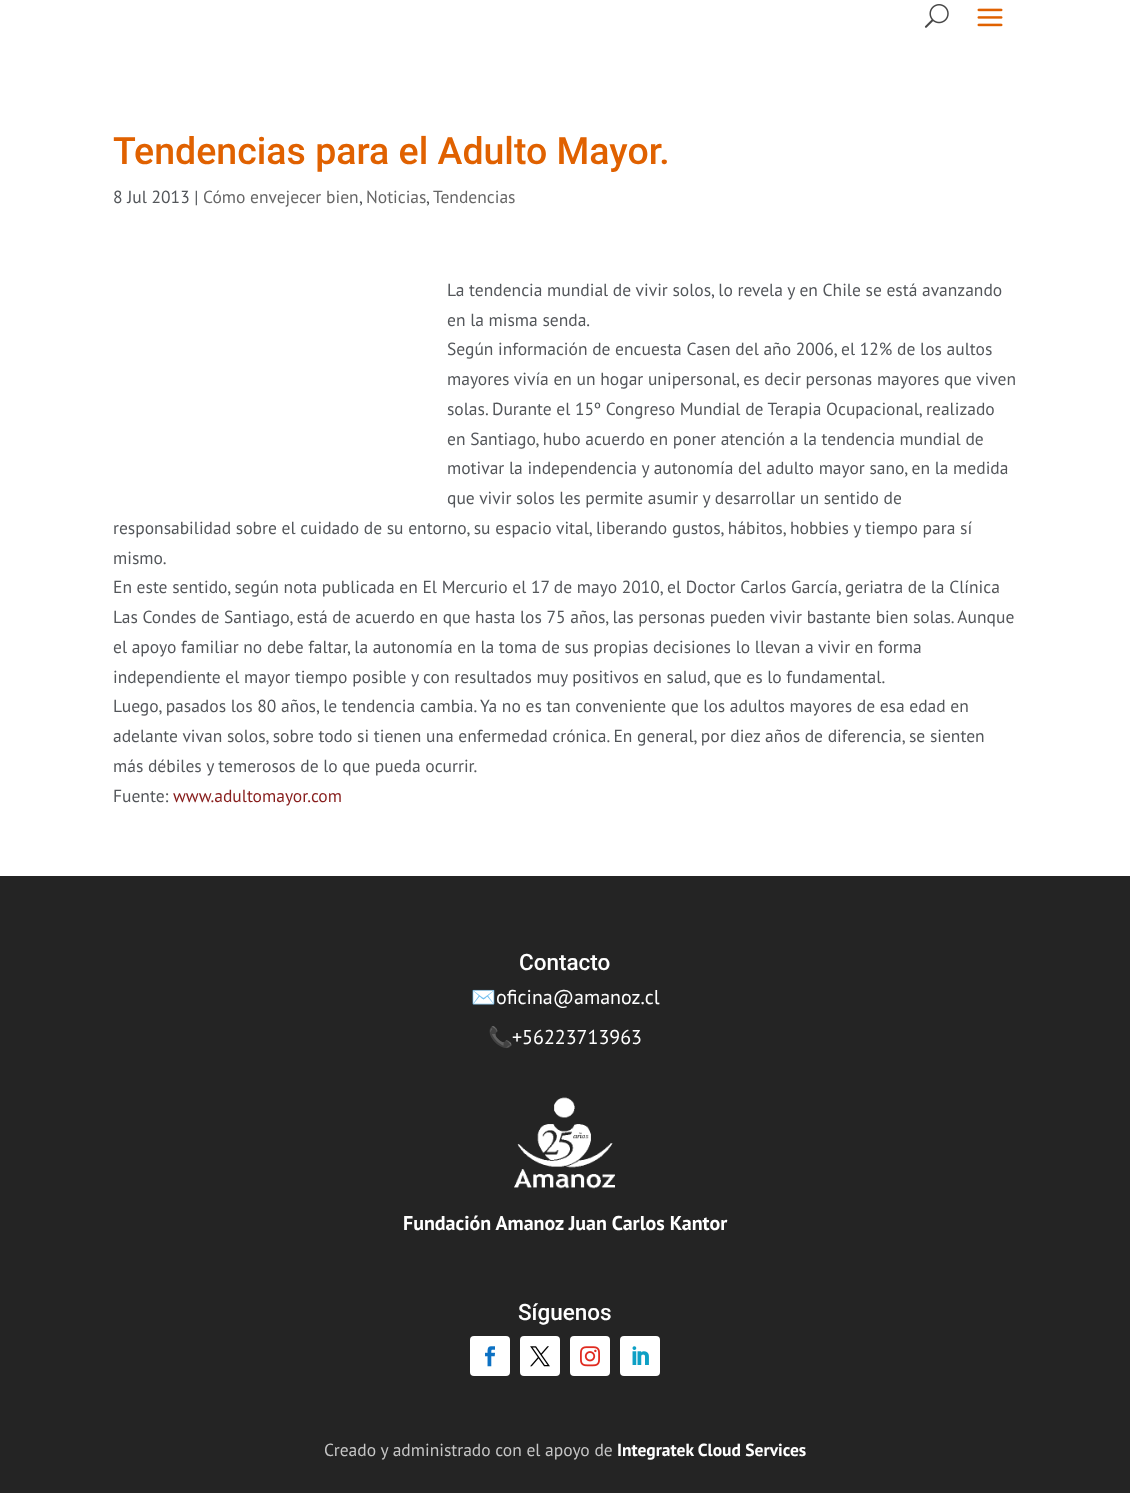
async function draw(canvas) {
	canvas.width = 1130;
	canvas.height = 1493;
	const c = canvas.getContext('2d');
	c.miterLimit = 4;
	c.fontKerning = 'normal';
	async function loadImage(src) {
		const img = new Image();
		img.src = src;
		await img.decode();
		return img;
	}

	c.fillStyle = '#fff';
	c.fillRect(0, 0, 1130, 1493);
	c.drawImage(await loadImage('img1.png'), 924, 4, 25, 24);
	c.drawImage(await loadImage('img2.png'), 977, 8, 26, 19);
	c.font = '500 37.5px Roboto';
	c.fillStyle = '#e06100';
	c.fillText('Tendencias para el Adulto Mayor.', 113, 164);
	c.font = '17.5px PT Sans';
	c.fillStyle = '#53565a';
	c.fillText('8 Jul 2013 |', 113, 203);
	c.fillStyle = '#666';
	c.fillText('Cómo envejecer bien', 203, 203);
	c.fillStyle = '#53565a';
	c.fillText(',', 359, 203);
	c.fillStyle = '#666';
	c.fillText('Noticias', 366, 203);
	c.fillStyle = '#53565a';
	c.fillText(',', 426, 203);
	c.fillStyle = '#666';
	c.fillText('Tendencias', 433, 203);
	c.fillStyle = '#53565a';
	for (const [text, x, y] of [
		['La tendencia mundial de vivir solos, lo revela y en Chile se está avanzando', 447, 296],
		['en la misma senda.', 447, 326],
		['Según información de encuesta Casen del año 2006, el 12% de los aultos', 447, 355],
		['mayores vivía en un hogar unipersonal, es decir personas mayores que viven', 447, 385],
		['solas. Durante el 15º Congreso Mundial de Terapia Ocupacional, realizado', 447, 415],
		['en Santiago, hubo acuerdo en poner atención a la tendencia mundial de', 447, 445],
		['motivar la independencia y autonomía del adulto mayor sano, en la medida', 447, 474],
		['que vivir solos les permite asumir y desarrollar un sentido de', 447, 504],
		['responsabilidad sobre el cuidado de su entorno, su espacio vital, liberando gustos, hábitos, hobbies y tiempo para sí', 113, 534],
		['mismo.', 113, 564],
		['En este sentido, según nota publicada en El Mercurio el 17 de mayo 2010, el Doctor Carlos García, geriatra de la Clínica', 113, 593],
		['Las Condes de Santiago, está de acuerdo en que hasta los 75 años, las personas pueden vivir bastante bien solas. Aunque', 113, 623],
		['el apoyo familiar no debe faltar, la autonomía en la toma de sus propias decisiones lo llevan a vivir en forma', 113, 653],
		['independiente el mayor tiempo posible y con resultados muy positivos en salud, que es lo fundamental.', 113, 683],
		['Luego, pasados los 80 años, le tendencia cambia. Ya no es tan conveniente que los adultos mayores de esa edad en', 113, 712],
		['adelante vivan solos, sobre todo si tienen una enfermedad crónica. En general, por diez años de diferencia, se sienten', 113, 742],
		['más débiles y temerosos de lo que pueda ocurrir.', 113, 772],
		['Fuente:', 113, 802],
	]) {
		c.fillText(text, x, y);
	}
	c.fillStyle = '#871d1c';
	c.fillText('www.adultomayor.com', 173, 802);
	c.fillStyle = '#242424';
	c.fillRect(0, 876, 1130, 617);
	c.font = '500 22.5px Roboto';
	c.fillStyle = '#fff';
	c.fillText('Contacto', 519, 970);
	c.font = '20px Noto Color Emoji';
	c.fillText('✉️', 471, 1004);
	c.font = '20px PT Sans';
	c.fillText('oficina@amanoz.cl', 496, 1004);
	c.font = '20px Noto Color Emoji';
	c.fillText('📞', 488, 1044);
	c.font = '20px PT Sans';
	c.fillText('+56223713963', 512, 1044);
	c.drawImage(await loadImage('img3.png'), 514, 1097, 101, 92);
	c.font = 'bold 20px PT Sans';
	c.fillText('Fundación Amanoz Juan Carlos Kantor', 403, 1230);
	c.font = '500 22.5px Roboto';
	c.fillText('Síguenos', 518, 1320);
	c.beginPath();
	c.roundRect(470, 1336, 40, 40, 4);
	c.fill();
	c.drawImage(await loadImage('img4.png'), 485, 1346, 10, 21);
	c.beginPath();
	c.roundRect(520, 1336, 40, 40, 4);
	c.fill();
	c.drawImage(await loadImage('img5.png'), 530, 1346, 20, 21);
	c.beginPath();
	c.roundRect(570, 1336, 40, 40, 4);
	c.fill();
	c.drawImage(await loadImage('img6.png'), 580, 1346, 20, 21);
	c.beginPath();
	c.roundRect(620, 1336, 40, 40, 4);
	c.fill();
	c.drawImage(await loadImage('img7.png'), 632, 1346, 17, 19);
	c.font = '17.5px PT Sans';
	c.fillStyle = '#c6c6c6';
	c.fillText('Creado y administrado con el apoyo de', 324, 1456);
	c.font = 'bold 17.5px PT Sans';
	c.fillStyle = '#fff';
	c.fillText('Integratek Cloud Services', 617, 1456);
}

draw(document.querySelector('canvas'));
